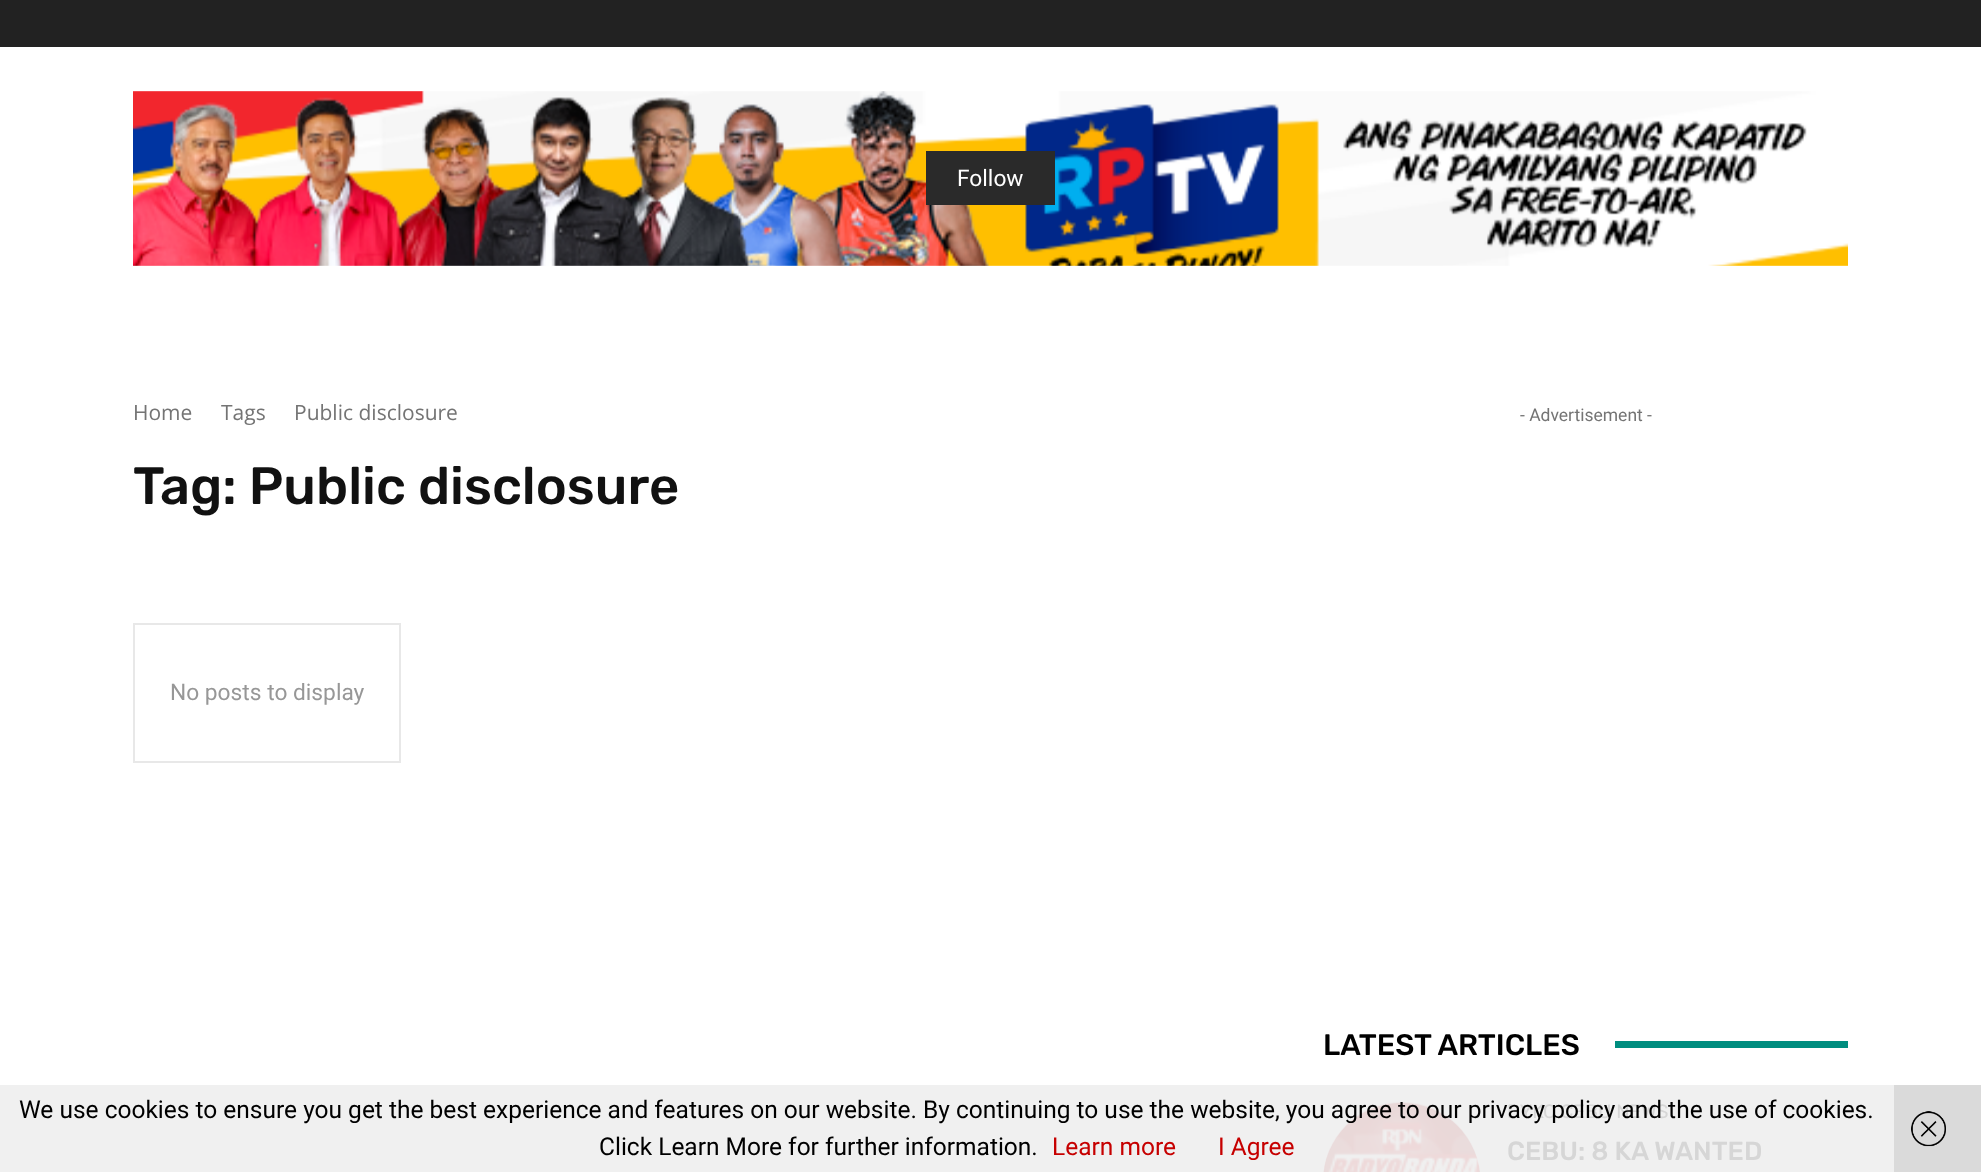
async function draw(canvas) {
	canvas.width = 1981;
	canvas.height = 1172;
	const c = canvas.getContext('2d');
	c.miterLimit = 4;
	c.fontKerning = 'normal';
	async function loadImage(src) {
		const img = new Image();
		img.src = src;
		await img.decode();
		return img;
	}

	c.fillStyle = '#fff';
	c.fillRect(0, 0, 1981, 1172);
	c.fillStyle = '#f0f0f0';
	c.fillRect(0, 1085, 1894, 87);
	c.fillStyle = '#222';
	c.fillRect(0, 0, 1981, 47);
	c.drawImage(await loadImage('img1.png'), 133, 91, 1715, 175);
	c.fillStyle = '#2a2a2a';
	c.fillRect(926, 151, 129, 54);
	c.font = '22.75px Roboto';
	c.fillStyle = '#fff';
	c.fillText('Follow', 957, 186);
	c.font = '21px Open Sans';
	c.fillStyle = '#747474';
	for (const [text, x, y] of [
		['Home', 133, 420],
		['Tags', 221, 420],
		['Public disclosure', 294, 420],
	]) {
		c.fillText(text, x, y);
	}
	c.font = '500 52.5px Rubik';
	c.fillStyle = '#111';
	c.fillText('Tag: Public disclosure', 133, 504);
	c.strokeStyle = '#e8e8e8';
	c.lineWidth = 2;
	c.strokeRect(134, 624, 266, 138);
	c.font = '22.75px Roboto';
	c.fillStyle = '#979797';
	c.fillText('No posts to display', 170, 700);
	c.font = '17.5px Roboto';
	c.fillStyle = '#747474';
	c.fillText('- Advertisement -', 1520, 421);
	c.font = '500 29.75px Rubik';
	c.fillStyle = '#000';
	c.fillText('LATEST ARTICLES', 1323, 1055);
	c.fillStyle = '#008d7f';
	c.fillRect(1615, 1041, 233, 7);
	c.drawImage(await loadImage('img2.png'), 1323, 1101, 157, 71);
	c.font = '19.25px Rubik';
	c.fillStyle = '#d6d6d6';
	c.fillText('DYKC CEBU NEWS', 1507, 1118);
	c.font = '500 26.25px Rubik';
	c.fillText('CEBU: 8 KA WANTED', 1507, 1160);
	c.font = '24.5px Roboto';
	c.fillStyle = '#000';
	c.fillText('We use cookies to ensure you get the best experience and features on our website. By continuing to use the website, you agree to our privacy policy and the use of cookies.', 19, 1118);
	c.fillText('Click Learn More for further information.', 599, 1155);
	c.fillStyle = '#c60000';
	c.fillText('Learn more', 1052, 1155);
	c.fillText('I Agree', 1218, 1155);
	c.fillStyle = '#dadada';
	c.fillRect(1894, 1085, 87, 87);
	c.drawImage(await loadImage('img3.png'), 1911, 1111, 35, 36);
}

draw(document.querySelector('canvas'));
